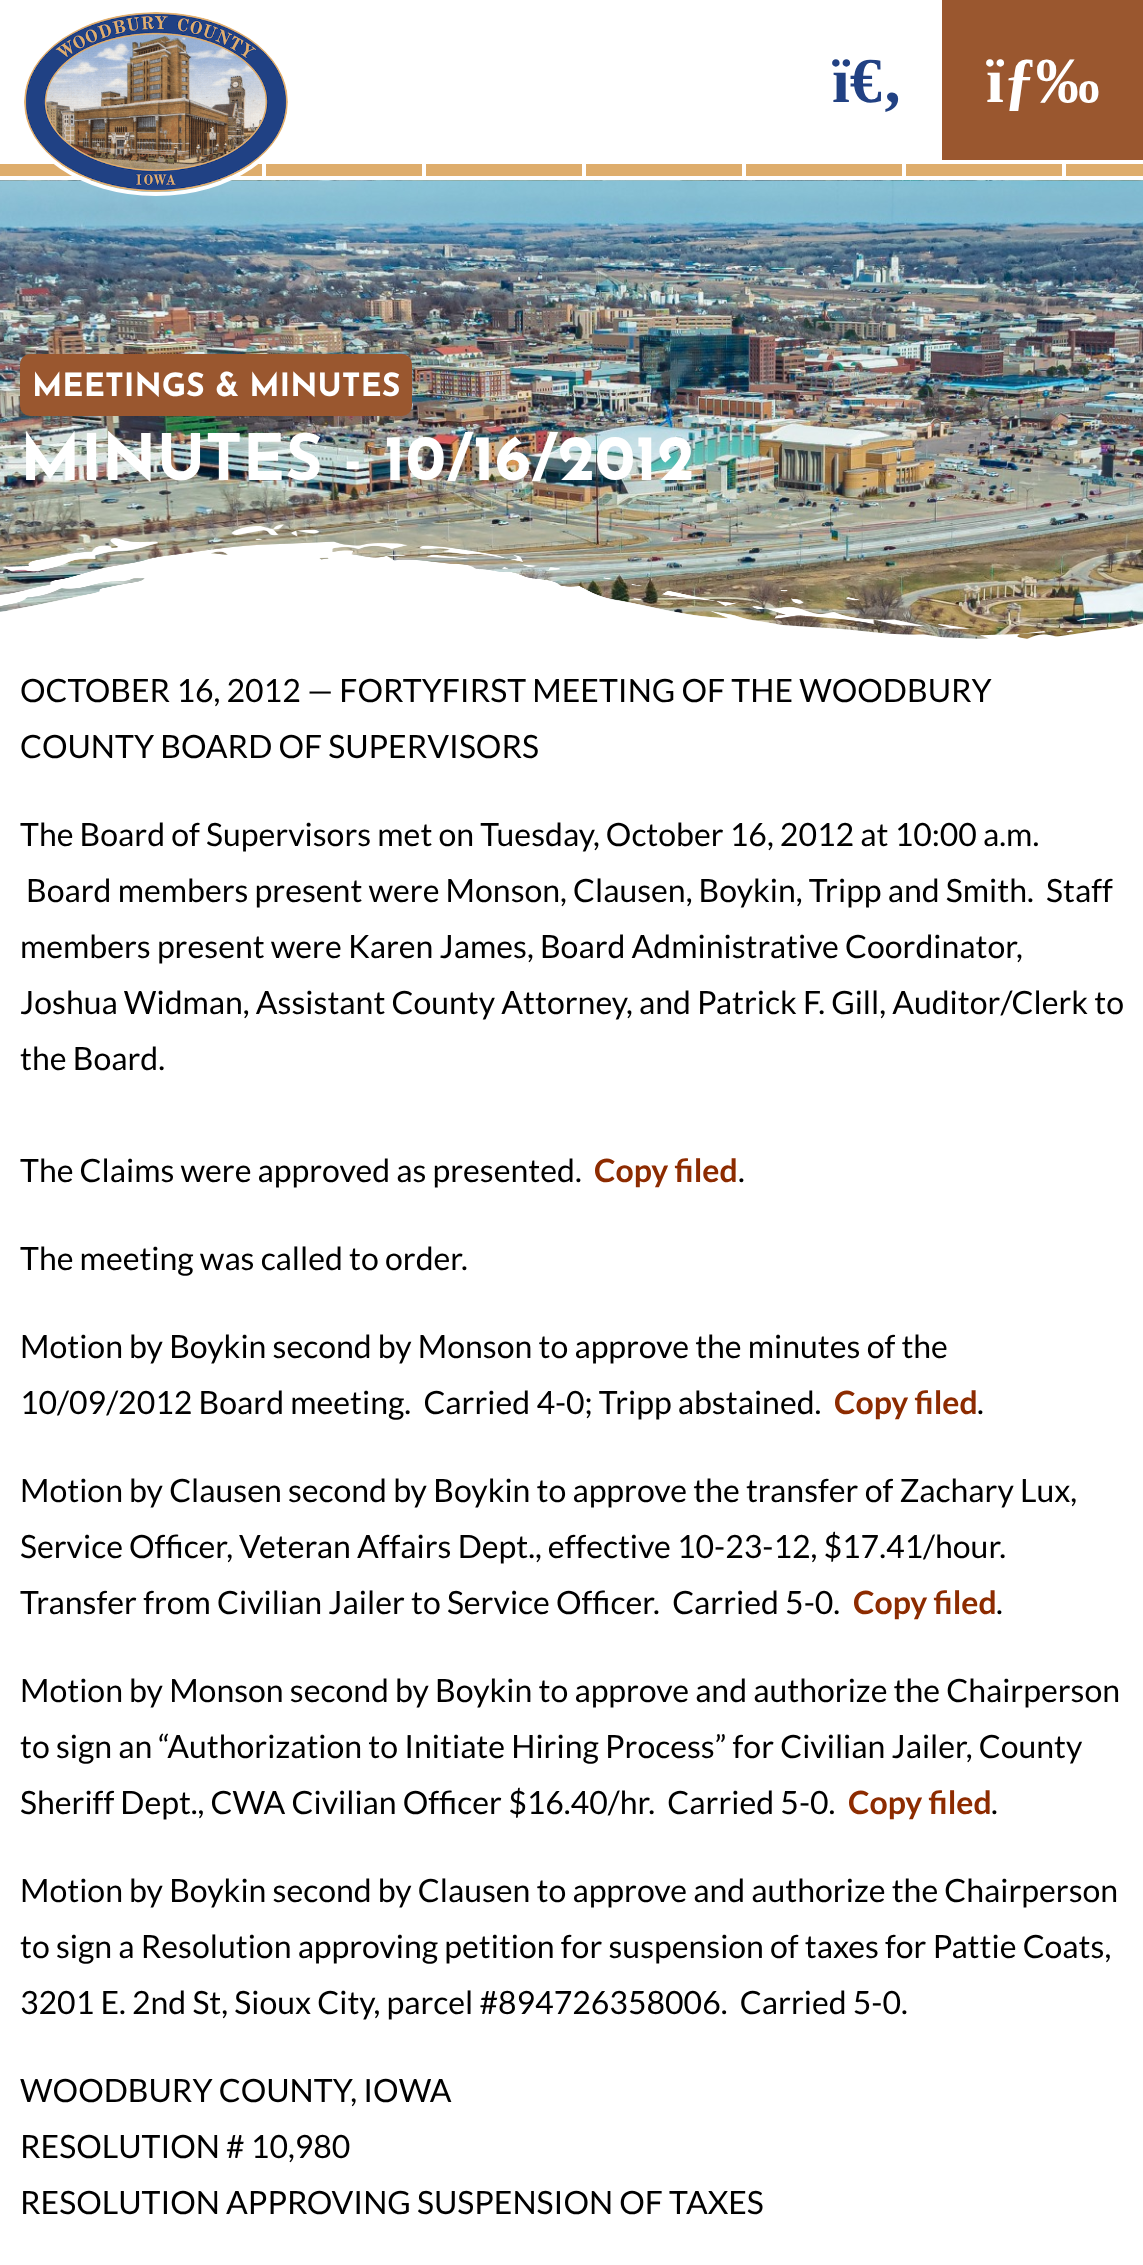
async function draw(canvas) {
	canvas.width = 1143;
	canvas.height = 2265;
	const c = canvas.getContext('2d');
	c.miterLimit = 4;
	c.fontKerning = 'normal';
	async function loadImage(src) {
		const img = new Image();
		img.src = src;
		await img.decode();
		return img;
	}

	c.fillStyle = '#fff';
	c.fillRect(0, 0, 1143, 2265);
	c.drawImage(await loadImage('img2.png'), 0, 164, 1143, 12);
	c.drawImage(await loadImage('img3.png'), 0, 180, 1143, 459);
	c.beginPath();
	c.moveTo(156, 10);
	c.bezierCurveTo(230, 10, 290, 51, 290, 102);
	c.bezierCurveTo(290, 153, 230, 194, 156, 194);
	c.bezierCurveTo(82, 194, 22, 153, 22, 102);
	c.bezierCurveTo(22, 51, 82, 10, 156, 10);
	c.closePath();
	c.strokeStyle = '#fff';
	c.lineWidth = 4;
	c.stroke();
	c.drawImage(await loadImage('img1.png'), 24, 12, 264, 180);
	c.font = 'bold 64px Liberation Serif';
	c.fillStyle = '#214183';
	c.fillText('ï€‚', 832, 102);
	c.fillStyle = '#9a572f';
	c.fillRect(942, 0, 201, 160);
	c.fillStyle = '#fff';
	c.fillText('ïƒ‰', 986, 102);
	c.fillStyle = '#9a572f';
	c.beginPath();
	c.roundRect(20, 354, 392, 62, 10);
	c.fill();
	c.font = '100 32px Josefin Sans';
	c.fillStyle = '#fff';
	c.fillText('MEETINGS & MINUTES', 32, 396);
	c.font = '100 64px Josefin Sans';
	c.fillText('MINUTES - 10/16/2012', 20, 480);
	c.drawImage(await loadImage('img4.png'), 0, 524, 1143, 118);
	c.font = '32px Lato';
	c.fillStyle = '#000';
	for (const [text, x, y] of [
		['OCTOBER 16, 2012 — FORTYFIRST MEETING OF THE WOODBURY', 20, 702],
		['COUNTY BOARD OF SUPERVISORS', 20, 758],
		['The Board of Supervisors met on Tuesday, October 16, 2012 at 10:00 a.m.', 20, 846],
		['Board members present were Monson, Clausen, Boykin, Tripp and Smith.  Staff', 26, 902],
		['members present were Karen James, Board Administrative Coordinator,', 20, 958],
		['Joshua Widman, Assistant County Attorney, and Patrick F. Gill, Auditor/Clerk to', 20, 1014],
		['the Board.', 20, 1070],
		['The Claims were approved as presented.', 20, 1182],
	]) {
		c.fillText(text, x, y);
	}
	c.font = 'bold 32px Lato';
	c.fillStyle = '#8d2b00';
	c.fillText('Copy filed', 594, 1182);
	c.font = '32px Lato';
	c.fillStyle = '#000';
	for (const [text, x, y] of [
		['.', 738, 1182],
		['The meeting was called to order.', 20, 1270],
		['Motion by Boykin second by Monson to approve the minutes of the', 20, 1358],
		['10/09/2012 Board meeting.  Carried 4-0; Tripp abstained.', 20, 1414],
	]) {
		c.fillText(text, x, y);
	}
	c.font = 'bold 32px Lato';
	c.fillStyle = '#8d2b00';
	c.fillText('Copy filed', 834, 1414);
	c.font = '32px Lato';
	c.fillStyle = '#000';
	for (const [text, x, y] of [
		['.', 977, 1414],
		['Motion by Clausen second by Boykin to approve the transfer of Zachary Lux,', 20, 1502],
		['Service Officer, Veteran Affairs Dept., effective 10-23-12, $17.41/hour.', 20, 1558],
		['Transfer from Civilian Jailer to Service Officer.  Carried 5-0.', 20, 1614],
	]) {
		c.fillText(text, x, y);
	}
	c.font = 'bold 32px Lato';
	c.fillStyle = '#8d2b00';
	c.fillText('Copy filed', 853, 1614);
	c.font = '32px Lato';
	c.fillStyle = '#000';
	for (const [text, x, y] of [
		['.', 996, 1614],
		['Motion by Monson second by Boykin to approve and authorize the Chairperson', 20, 1702],
		['to sign an “Authorization to Initiate Hiring Process” for Civilian Jailer, County', 20, 1758],
		['Sheriff Dept., CWA Civilian Officer $16.40/hr.  Carried 5-0.', 20, 1814],
	]) {
		c.fillText(text, x, y);
	}
	c.font = 'bold 32px Lato';
	c.fillStyle = '#8d2b00';
	c.fillText('Copy filed', 848, 1814);
	c.font = '32px Lato';
	c.fillStyle = '#000';
	for (const [text, x, y] of [
		['.', 991, 1814],
		['Motion by Boykin second by Clausen to approve and authorize the Chairperson', 20, 1902],
		['to sign a Resolution approving petition for suspension of taxes for Pattie Coats,', 20, 1958],
		['3201 E. 2nd St, Sioux City, parcel #894726358006.  Carried 5-0.', 20, 2014],
		['WOODBURY COUNTY, IOWA', 20, 2102],
		['RESOLUTION # 10,980', 20, 2158],
		['RESOLUTION APPROVING SUSPENSION OF TAXES', 20, 2214],
	]) {
		c.fillText(text, x, y);
	}
}

draw(document.querySelector('canvas'));
